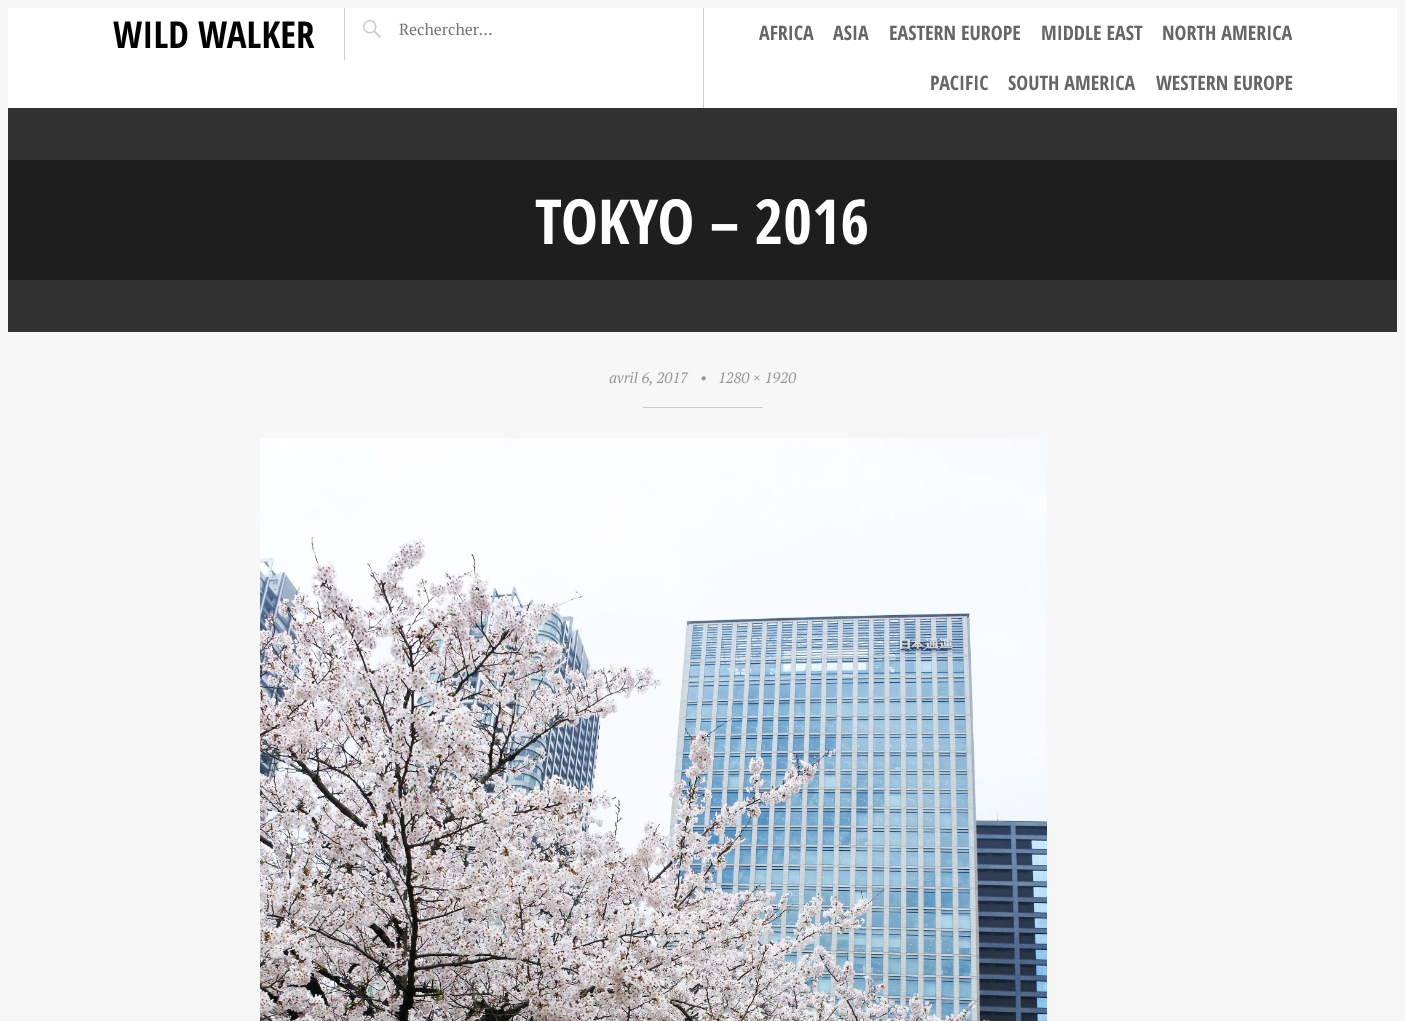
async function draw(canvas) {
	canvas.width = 1405;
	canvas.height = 1021;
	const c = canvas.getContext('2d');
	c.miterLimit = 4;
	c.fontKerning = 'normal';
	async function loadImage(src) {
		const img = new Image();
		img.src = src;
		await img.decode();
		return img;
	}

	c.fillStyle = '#f7f7f7';
	c.fillRect(0, 0, 1405, 1021);
	c.fillStyle = '#fff';
	c.fillRect(8, 8, 1389, 100);
	c.fillStyle = '#ccc';
	c.fillRect(344, 8, 1, 52);
	c.font = 'bold 37px Open Sans Condensed';
	c.fillStyle = '#000';
	c.fillText('WILD WALKER', 113, 48);
	c.drawImage(await loadImage('img1.png'), 363, 20, 18, 18);
	c.font = '16px PT Serif';
	c.fillStyle = '#757575';
	c.fillText('Rechercher…', 399, 35);
	c.fillStyle = '#ccc';
	c.fillRect(703, 8, 1, 100);
	c.font = 'bold 20px Open Sans Condensed';
	c.fillStyle = '#666';
	for (const [text, x, y] of [
		['AFRICA', 759, 40],
		['ASIA', 833, 40],
		['EASTERN EUROPE', 889, 40],
		['MIDDLE EAST', 1041, 40],
		['NORTH AMERICA', 1162, 40],
		['PACIFIC', 930, 90],
		['SOUTH AMERICA', 1008, 90],
		['WESTERN EUROPE', 1156, 90],
	]) {
		c.fillText(text, x, y);
	}
	for (const [x, y, w, h, color] of [
		[8, 160, 1389, 120, '#1e1e1e'],
		[8, 108, 1389, 52, '#323232'],
		[8, 280, 1389, 52, '#323232'],
	]) {
		c.fillStyle = color;
		c.fillRect(x, y, w, h);
	}
	c.font = 'bold 62px Open Sans Condensed';
	c.fillStyle = '#fff';
	c.fillText('TOKYO – 2016', 535, 244);
	c.font = 'italic 15px PT Serif';
	c.fillStyle = '#999';
	for (const [text, x, y] of [
		['avril 6, 2017', 609, 383],
		['•', 700, 383],
		['1280 × 1920', 718, 383],
	]) {
		c.fillText(text, x, y);
	}
	c.fillStyle = '#ccc';
	c.fillRect(643, 407, 120, 1);
	c.drawImage(await loadImage('img2.png'), 260, 438, 787, 583);
}

draw(document.querySelector('canvas'));
